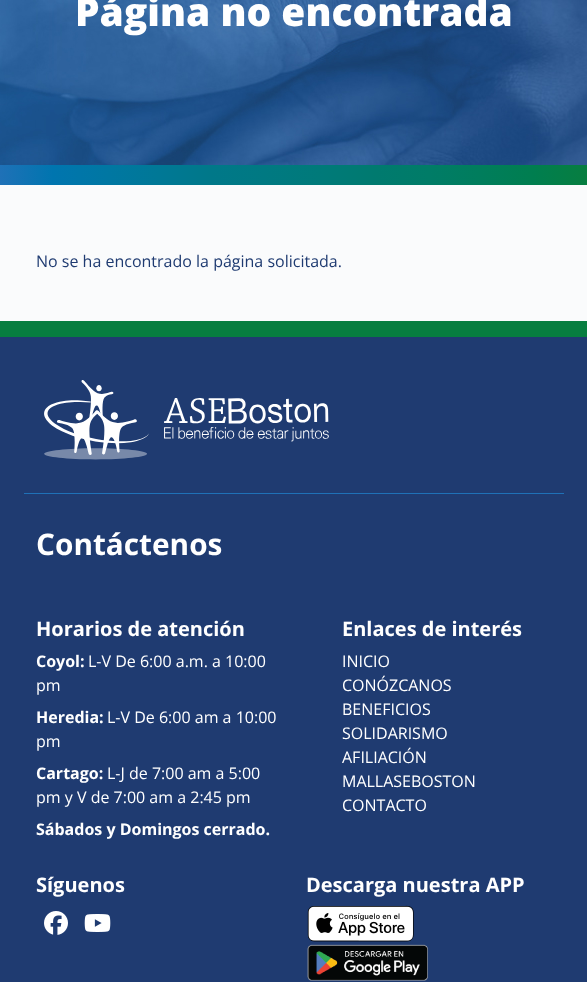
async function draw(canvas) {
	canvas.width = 587;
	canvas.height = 982;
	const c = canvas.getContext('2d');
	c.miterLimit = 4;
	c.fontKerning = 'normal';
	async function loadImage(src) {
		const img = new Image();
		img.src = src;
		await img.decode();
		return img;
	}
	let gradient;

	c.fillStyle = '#fafbfc';
	c.fillRect(0, 0, 587, 982);
	c.drawImage(await loadImage('img1.png'), 0, 0, 587, 165);
	c.font = '800 38.9px Open Sans';
	c.fillStyle = '#fff';
	c.fillText('Página no encontrada', 75, 26);
	gradient = c.createLinearGradient(0, 175, 587, 175);
	gradient.addColorStop(0, '#1f71b7');
	gradient.addColorStop(0.09, '#0075af');
	gradient.addColorStop(0.18, '#0077a3');
	gradient.addColorStop(0.27, '#007896');
	gradient.addColorStop(0.36, '#007889');
	gradient.addColorStop(0.45, '#007982');
	gradient.addColorStop(0.55, '#007a79');
	gradient.addColorStop(0.64, '#007a6f');
	gradient.addColorStop(0.73, '#007c67');
	gradient.addColorStop(0.82, '#007d5c');
	gradient.addColorStop(0.91, '#007e4f');
	gradient.addColorStop(1, '#077e40');
	c.fillStyle = gradient;
	c.fillRect(0, 165, 587, 20);
	c.font = '16px Open Sans';
	c.fillStyle = '#1f3b71';
	c.fillText('No se ha encontrado la página solicitada.', 36, 267);
	for (const [x, y, w, h, color] of [
		[0, 337, 587, 645, '#1f3b71'],
		[0, 321, 587, 16, '#077e40'],
		[24, 493, 540, 1, '#1f71b7'],
	]) {
		c.fillStyle = color;
		c.fillRect(x, y, w, h);
	}
	c.drawImage(await loadImage('img2.png'), 44, 380, 285, 80);
	c.font = 'bold 29.75px Open Sans';
	c.fillStyle = '#fff';
	c.fillText('Contáctenos', 36, 555);
	c.font = 'bold 20px Open Sans';
	c.fillText('Horarios de atención', 36, 636);
	c.font = 'bold 16px Open Sans';
	c.fillText('Coyol:', 36, 667);
	c.font = '16px Open Sans';
	c.fillText('L-V De 6:00 a.m. a 10:00', 88, 667);
	c.fillText('pm', 36, 691);
	c.font = 'bold 16px Open Sans';
	c.fillText('Heredia:', 36, 723);
	c.font = '16px Open Sans';
	c.fillText('L-V De 6:00 am a 10:00', 107, 723);
	c.fillText('pm', 36, 747);
	c.font = 'bold 16px Open Sans';
	c.fillText('Cartago:', 36, 779);
	c.font = '16px Open Sans';
	c.fillText('L-J de 7:00 am a 5:00', 107, 779);
	c.fillText('pm y V de 7:00 am a 2:45 pm', 36, 803);
	c.font = 'bold 16px Open Sans';
	c.fillText('Sábados y Domingos cerrado.', 36, 835);
	c.font = 'bold 20px Open Sans';
	c.fillText('Enlaces de interés', 342, 636);
	c.font = '16px Open Sans';
	for (const [text, x, y] of [
		['INICIO', 342, 667],
		['CONÓZCANOS', 342, 691],
		['BENEFICIOS', 342, 715],
		['SOLIDARISMO', 342, 739],
		['AFILIACIÓN', 342, 763],
		['MALLASEBOSTON', 342, 787],
		['CONTACTO', 342, 811],
	]) {
		c.fillText(text, x, y);
	}
	c.font = 'bold 20px Open Sans';
	c.fillText('Síguenos', 36, 892);
	c.drawImage(await loadImage('img3.png'), 44, 911, 24, 24);
	c.drawImage(await loadImage('img4.png'), 84, 914, 27, 18);
	c.fillText('Descarga nuestra APP', 306, 892);
	c.drawImage(await loadImage('img5.png'), 307, 905, 107, 37);
	c.drawImage(await loadImage('img6.png'), 307, 944, 121, 37);
}

draw(document.querySelector('canvas'));
